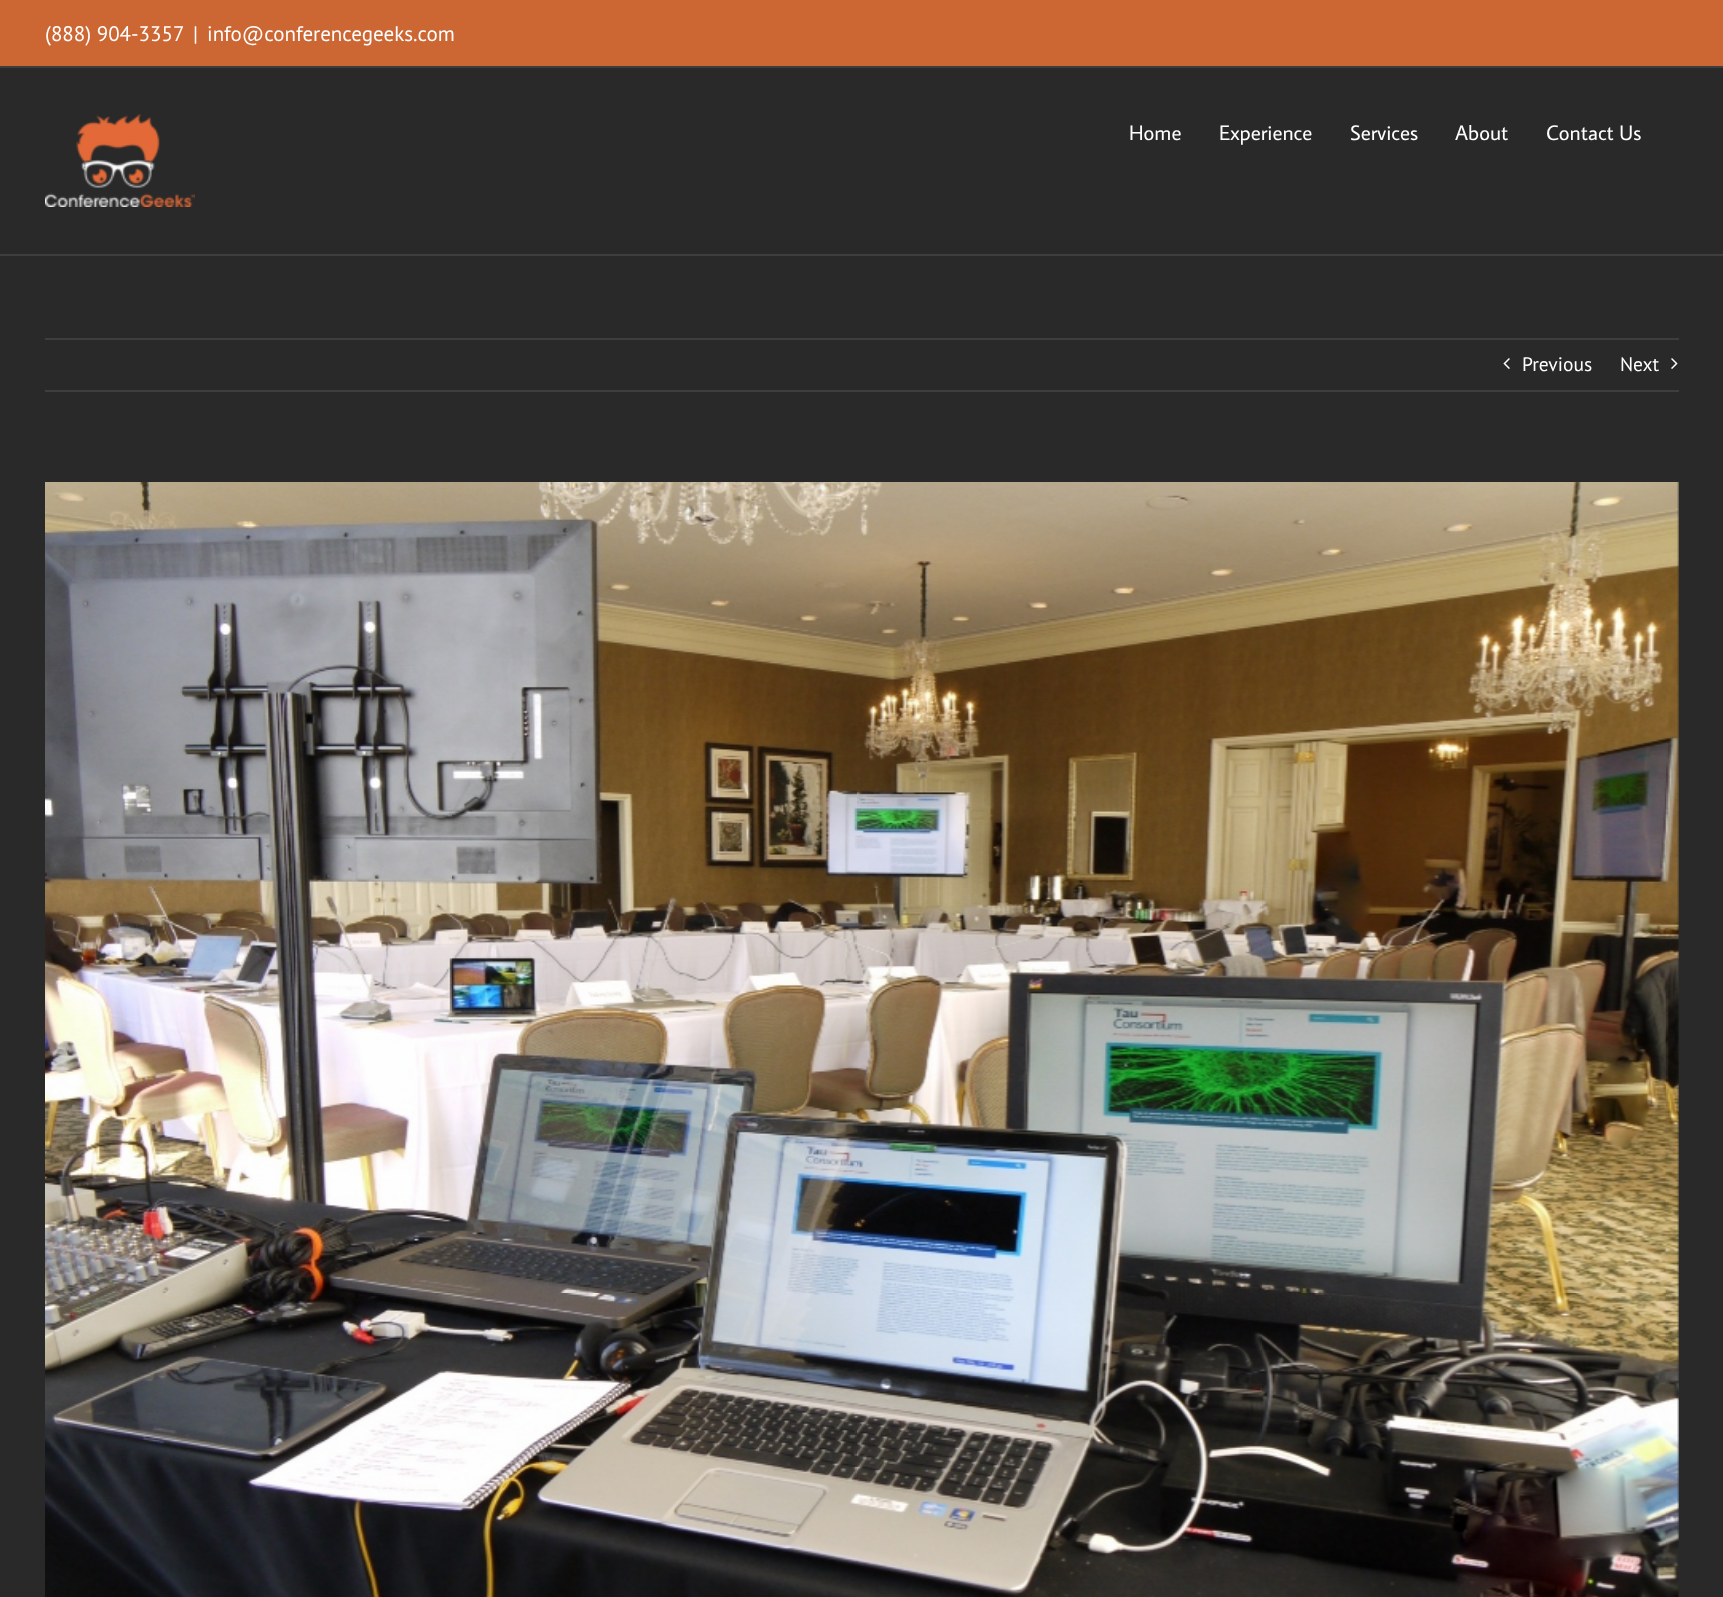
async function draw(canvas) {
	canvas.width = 1723;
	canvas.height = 1597;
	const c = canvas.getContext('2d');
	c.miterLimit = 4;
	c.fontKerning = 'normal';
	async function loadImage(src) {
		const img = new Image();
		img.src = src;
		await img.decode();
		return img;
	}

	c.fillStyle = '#29292a';
	c.fillRect(0, 0, 1723, 1597);
	c.fillStyle = '#c63';
	c.fillRect(0, 0, 1723, 66);
	c.fillStyle = '#3e3e3e';
	c.fillRect(0, 66, 1723, 2);
	c.font = '21px PT Sans';
	c.fillStyle = '#fff';
	for (const [text, x, y] of [
		['(888) 904-3357', 45, 41],
		['|', 193, 41],
		['info@conferencegeeks.com', 207, 41],
	]) {
		c.fillText(text, x, y);
	}
	c.fillStyle = '#3e3e3e';
	c.fillRect(0, 254, 1723, 2);
	c.drawImage(await loadImage('img1.png'), 45, 114, 150, 93);
	c.font = '21px Average Sans';
	c.fillStyle = '#fff';
	for (const [text, x, y] of [
		['Home', 1129, 140],
		['Experience', 1219, 140],
		['Services', 1350, 140],
		['About', 1455, 140],
		['Contact Us', 1546, 140],
	]) {
		c.fillText(text, x, y);
	}
	c.fillStyle = '#3e3e3e';
	c.fillRect(45, 338, 1634, 2);
	c.fillRect(45, 390, 1634, 2);
	c.drawImage(await loadImage('img2.png'), 1503, 358, 7, 11);
	c.font = '19.5px PT Sans';
	c.fillStyle = '#fff';
	c.fillText('Previous', 1522, 371);
	c.fillText('Next', 1620, 371);
	c.drawImage(await loadImage('img3.png'), 1671, 358, 7, 11);
	c.drawImage(await loadImage('img4.png'), 45, 482, 1634, 1115);
}

draw(document.querySelector('canvas'));
